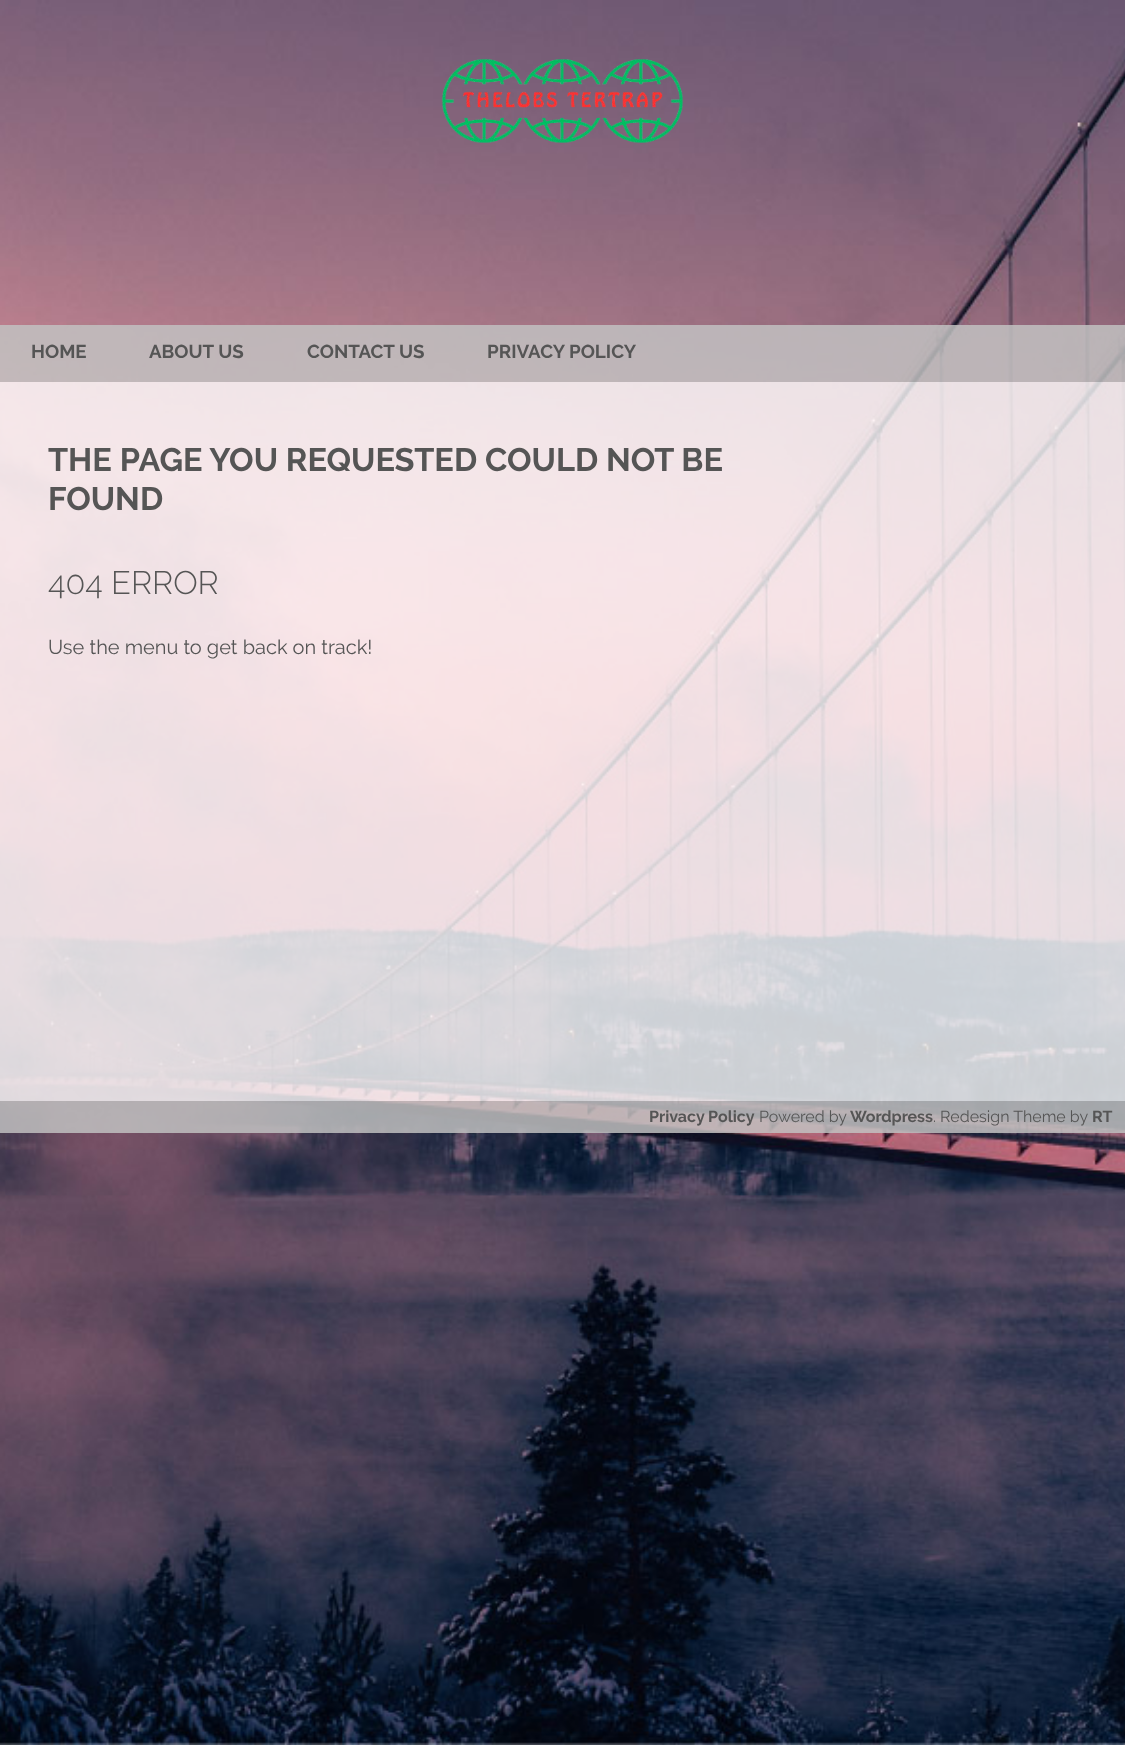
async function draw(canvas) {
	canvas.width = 1125;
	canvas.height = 1745;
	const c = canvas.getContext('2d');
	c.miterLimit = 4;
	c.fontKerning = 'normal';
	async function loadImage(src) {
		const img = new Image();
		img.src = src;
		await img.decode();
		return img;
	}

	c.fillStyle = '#fff';
	c.fillRect(0, 0, 1125, 1745);
	c.drawImage(await loadImage('img1.png'), 0, 0, 1125, 1745);
	c.drawImage(await loadImage('img2.png'), 441, 58, 243, 85);
	c.fillStyle = '#ffffffcc';
	c.fillRect(0, 325, 1125, 808);
	c.fillStyle = '#00000033';
	c.fillRect(0, 325, 1125, 57);
	c.font = 'bold 18.75px Raleway';
	c.fillStyle = '#555';
	for (const [text, x, y] of [
		['HOME', 31, 358],
		['ABOUT US', 149, 358],
		['CONTACT US', 307, 358],
		['PRIVACY POLICY', 487, 358],
	]) {
		c.fillText(text, x, y);
	}
	c.font = 'bold 32.5px Raleway';
	c.fillText('THE PAGE YOU REQUESTED COULD NOT BE', 48, 471);
	c.fillText('FOUND', 48, 510);
	c.font = '300 32.5px Raleway';
	c.fillText('404 ERROR', 48, 594);
	c.font = '20px Raleway';
	c.fillText('Use the menu to get back on track!', 48, 654);
	c.fillStyle = '#00000033';
	c.fillRect(0, 1101, 1125, 32);
	c.font = 'bold 16px Raleway';
	c.fillStyle = '#555';
	c.fillText('Privacy Policy', 649, 1122);
	c.font = '16px Raleway';
	c.fillText('Powered by', 759, 1122);
	c.font = 'bold 16px Raleway';
	c.fillText('Wordpress', 850, 1122);
	c.font = '16px Raleway';
	c.fillText('. Redesign Theme by', 933, 1122);
	c.font = 'bold 16px Raleway';
	c.fillText('RT', 1092, 1122);
}

draw(document.querySelector('canvas'));
